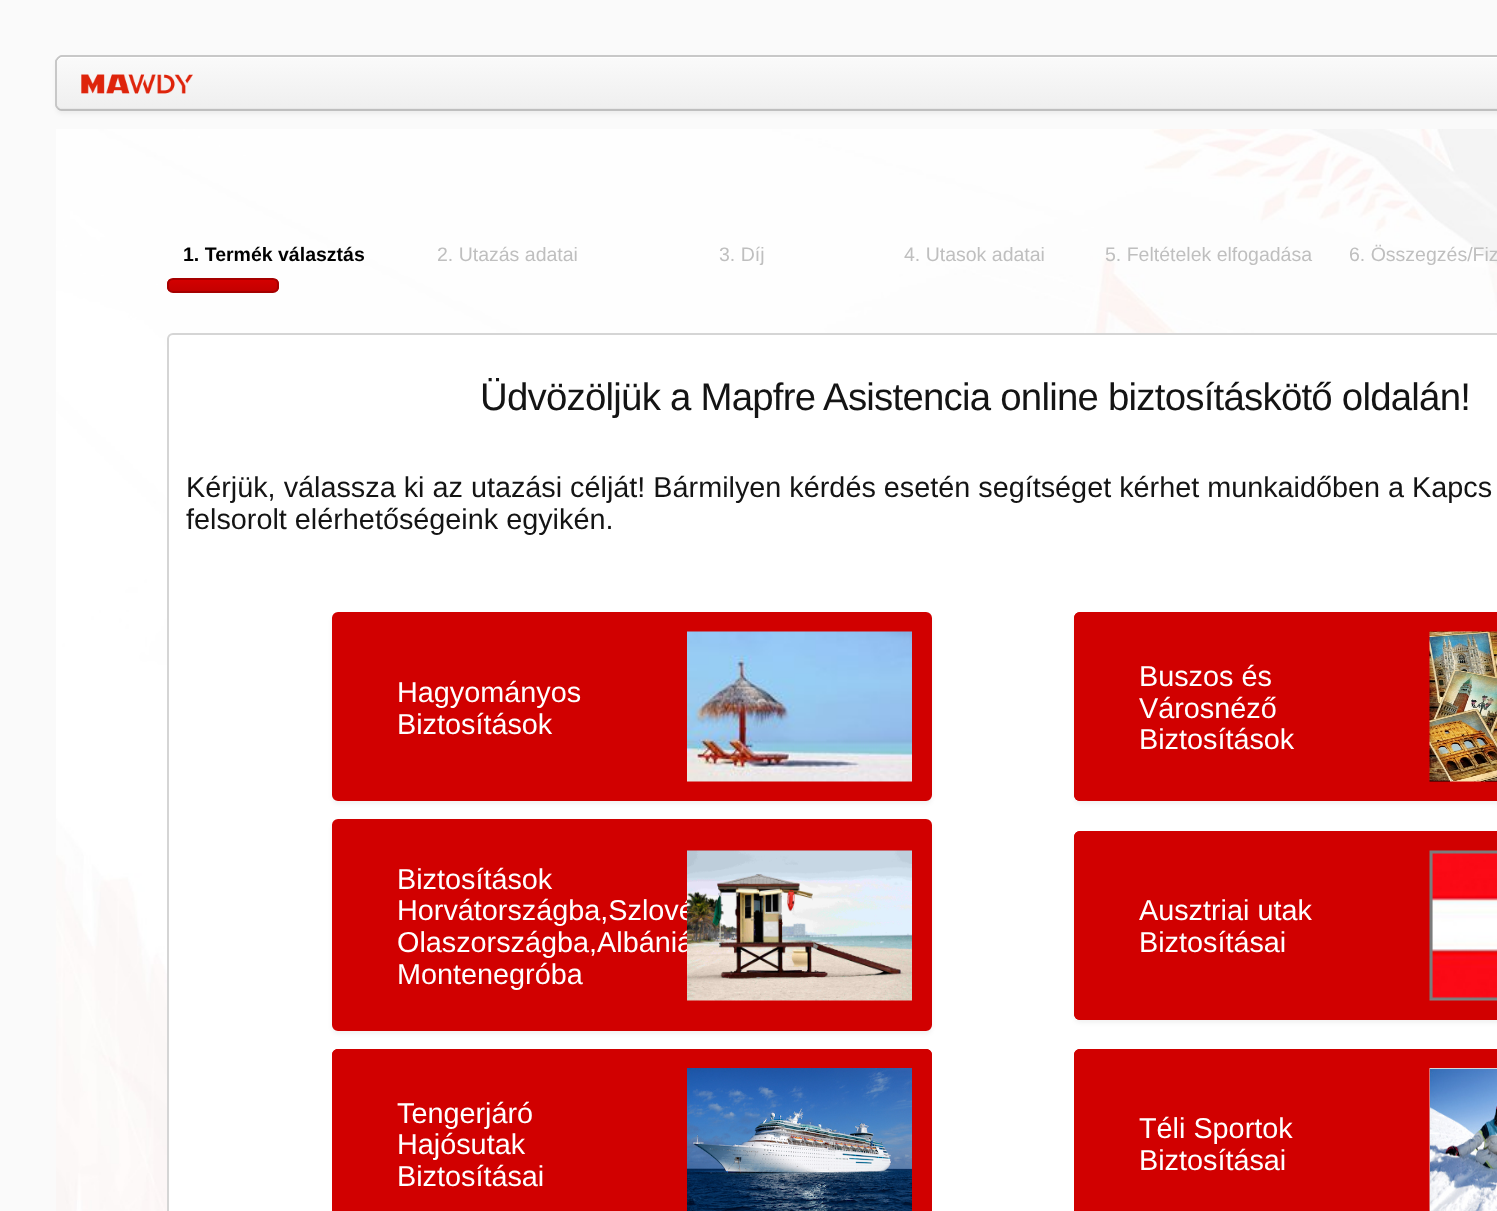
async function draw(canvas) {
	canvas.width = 1497;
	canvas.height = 1211;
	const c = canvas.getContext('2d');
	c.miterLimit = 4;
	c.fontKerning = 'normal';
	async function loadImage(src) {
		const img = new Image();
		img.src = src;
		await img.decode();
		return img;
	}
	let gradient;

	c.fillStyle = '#fafafa';
	c.fillRect(0, 0, 1497, 1211);
	c.fillStyle = '#0000000d';
	c.filter = 'blur(2px)';
	c.beginPath();
	c.roundRect(56, 59, 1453, 55, 6);
	c.fill();
	c.filter = 'none';
	c.save();
	c.beginPath();
	c.roundRect(56, 56, 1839, 55, 6);
	c.clip();
	gradient = c.createLinearGradient(975, 57, 975, 110);
	gradient.addColorStop(0.02, '#fafafa');
	gradient.addColorStop(0.98, '#efefef');
	c.fillStyle = gradient;
	c.fillRect(56, 57, 1441, 53);
	c.restore();
	c.fillStyle = '#e7e7e7';
	c.beginPath();
	c.moveTo(57, 104);
	c.lineTo(57, 105);
	c.bezierCurveTo(57, 108, 59, 110, 62, 110);
	c.lineTo(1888, 110);
	c.bezierCurveTo(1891, 110, 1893, 108, 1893, 105);
	c.lineTo(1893, 104);
	c.bezierCurveTo(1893, 106, 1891, 108, 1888, 108);
	c.lineTo(62, 108);
	c.bezierCurveTo(59, 108, 57, 106, 57, 104);
	c.closePath();
	c.fill();
	c.fillStyle = '#fff';
	c.beginPath();
	c.moveTo(62, 58);
	c.lineTo(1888, 58);
	c.bezierCurveTo(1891, 58, 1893, 61, 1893, 63);
	c.lineTo(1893, 62);
	c.bezierCurveTo(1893, 59, 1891, 57, 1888, 57);
	c.lineTo(62, 57);
	c.bezierCurveTo(59, 57, 57, 59, 57, 62);
	c.lineTo(57, 63);
	c.bezierCurveTo(57, 61, 59, 58, 62, 58);
	c.closePath();
	c.fill();
	c.beginPath();
	c.moveTo(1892, 108.5);
	c.bezierCurveTo(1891, 109.5, 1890, 110, 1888.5, 110);
	c.lineTo(61.5, 110);
	c.bezierCurveTo(60, 110, 59, 109.5, 58, 108.5);
	c.strokeStyle = '#bcbcbc';
	c.lineWidth = 1.5;
	c.stroke();
	c.beginPath();
	c.moveTo(58, 108.5);
	c.bezierCurveTo(57, 107.5, 56, 106.5, 56, 105);
	c.lineTo(56, 61.5);
	c.bezierCurveTo(56, 60, 57, 59, 58, 58);
	c.bezierCurveTo(59, 57, 60, 56, 61.5, 56);
	c.lineTo(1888.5, 56);
	c.bezierCurveTo(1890, 56, 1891, 57, 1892, 58);
	c.bezierCurveTo(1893, 59, 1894, 60, 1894, 61.5);
	c.lineTo(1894, 105);
	c.bezierCurveTo(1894, 106.5, 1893, 107.5, 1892, 108.5);
	c.strokeStyle = '#c5c5c5';
	c.stroke();
	c.beginPath();
	c.moveTo(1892, 108.5);
	c.bezierCurveTo(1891, 109.5, 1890, 110, 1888.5, 110);
	c.lineTo(61.5, 110);
	c.bezierCurveTo(60, 110, 59, 109.5, 58, 108.5);
	c.strokeStyle = '#bcbcbc';
	c.stroke();
	c.beginPath();
	c.moveTo(58, 108.5);
	c.bezierCurveTo(57, 107.5, 56, 106.5, 56, 105);
	c.lineTo(56, 61.5);
	c.bezierCurveTo(56, 60, 57, 59, 58, 58);
	c.bezierCurveTo(59, 57, 60, 56, 61.5, 56);
	c.lineTo(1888.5, 56);
	c.bezierCurveTo(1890, 56, 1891, 57, 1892, 58);
	c.bezierCurveTo(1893, 59, 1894, 60, 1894, 61.5);
	c.lineTo(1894, 105);
	c.bezierCurveTo(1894, 106.5, 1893, 107.5, 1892, 108.5);
	c.strokeStyle = '#c5c5c5';
	c.stroke();
	c.drawImage(await loadImage('img1.png'), 81, 74, 112, 20);
	c.drawImage(await loadImage('img2.png'), 56, 129, 1441, 1082);
	c.font = 'bold 19.5px Liberation Sans';
	c.fillStyle = '#000';
	c.fillText('1. Termék választás', 183, 261);
	c.font = '19.5px Liberation Sans';
	c.fillStyle = '#bfbfbf';
	for (const [text, x, y] of [
		['2. Utazás adatai', 437, 261],
		['3. Díj', 719, 261],
		['4. Utasok adatai', 904, 261],
		['5. Feltételek elfogadása', 1105, 261],
		['6. Összegzés/Fiz', 1349, 261],
	]) {
		c.fillText(text, x, y);
	}
	c.save();
	c.beginPath();
	c.roundRect(167, 278, 112, 15, 6);
	c.clip();
	gradient = c.createLinearGradient(223, 279, 223, 291);
	gradient.addColorStop(0.02, '#d40000');
	gradient.addColorStop(0.98, '#c40000');
	c.fillStyle = gradient;
	c.fillRect(167, 279, 112, 12);
	c.restore();
	c.beginPath();
	c.roundRect(168, 279, 110, 13, 5);
	c.strokeStyle = '#a50000';
	c.lineWidth = 2;
	c.stroke();
	c.fillStyle = '#fff';
	c.beginPath();
	c.moveTo(173, 333);
	c.lineTo(1497, 333);
	c.lineTo(1497, 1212);
	c.lineTo(167, 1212);
	c.lineTo(167, 339);
	c.bezierCurveTo(167, 335.5, 169.5, 333, 173, 333);
	c.closePath();
	c.fill();
	c.beginPath();
	c.roundRect(168, 334, 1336, 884, 5);
	c.strokeStyle = '#d5d5d5';
	c.stroke();
	c.letterSpacing = '-0.77px';
	c.font = '38.4px Liberation Sans';
	c.fillStyle = '#141414';
	c.fillText('Üdvözöljük a Mapfre Asistencia online biztosításkötő oldalán!', 480, 410);
	c.letterSpacing = '0px';
	c.font = '28.8px Liberation Sans';
	c.fillText('Kérjük, válassza ki az utazási célját! Bármilyen kérdés esetén segítséget kérhet munkaidőben a Kapcs', 186, 497);
	c.fillText('felsorolt elérhetőségeink egyikén.', 186, 529);
	c.fillStyle = '#0000000d';
	c.filter = 'blur(2px)';
	c.beginPath();
	c.roundRect(332, 615, 600, 189, 6);
	c.fill();
	c.filter = 'none';
	c.fillStyle = '#d10000';
	c.beginPath();
	c.roundRect(333, 613, 598, 187, 5);
	c.fill();
	c.strokeStyle = '#d10000';
	c.stroke();
	c.fillStyle = '#fff';
	c.fillText('Hagyományos', 397, 702);
	c.fillText('Biztosítások', 397, 734);
	c.drawImage(await loadImage('img3.png'), 687, 631, 225, 151);
	c.fillStyle = '#0000000d';
	c.filter = 'blur(2px)';
	c.beginPath();
	c.roundRect(1074, 615, 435, 189, 6);
	c.fill();
	c.filter = 'none';
	c.fillStyle = '#d10000';
	c.beginPath();
	c.roundRect(1074, 612, 423, 189, [6, 0, 0, 6]);
	c.fill();
	c.beginPath();
	c.roundRect(1075, 613, 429, 187, 5);
	c.stroke();
	c.fillStyle = '#fff';
	for (const [text, x, y] of [
		['Buszos és', 1139, 686],
		['Városnéző', 1139, 718],
		['Biztosítások', 1139, 749],
	]) {
		c.fillText(text, x, y);
	}
	c.drawImage(await loadImage('img4.png'), 1429, 631, 68, 151);
	c.fillStyle = '#0000000d';
	c.filter = 'blur(2px)';
	c.beginPath();
	c.roundRect(332, 822, 600, 212, 6);
	c.fill();
	c.filter = 'none';
	c.fillStyle = '#d10000';
	c.beginPath();
	c.roundRect(333, 820, 598, 210, 5);
	c.fill();
	c.stroke();
	c.fillStyle = '#fff';
	for (const [text, x, y] of [
		['Biztosítások', 397, 889],
		['Horvátországba,Szlové', 397, 920],
		['Olaszországba,Albániá', 397, 952],
		['Montenegróba', 397, 984],
	]) {
		c.fillText(text, x, y);
	}
	c.drawImage(await loadImage('img5.png'), 687, 850, 225, 151);
	c.fillStyle = '#0000000d';
	c.filter = 'blur(2px)';
	c.beginPath();
	c.roundRect(1074, 834, 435, 189, 6);
	c.fill();
	c.filter = 'none';
	c.fillStyle = '#d10000';
	c.beginPath();
	c.roundRect(1074, 831, 423, 189, [6, 0, 0, 6]);
	c.fill();
	c.beginPath();
	c.roundRect(1075, 832, 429, 187, 5);
	c.stroke();
	c.fillStyle = '#fff';
	c.fillText('Ausztriai utak', 1139, 920);
	c.fillText('Biztosításai', 1139, 952);
	c.drawImage(await loadImage('img6.png'), 1429, 850, 68, 151);
	c.fillStyle = '#d10000';
	c.beginPath();
	c.moveTo(338, 1049);
	c.lineTo(926, 1049);
	c.bezierCurveTo(929.5, 1049, 932, 1051.5, 932, 1055);
	c.lineTo(932, 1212);
	c.lineTo(332, 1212);
	c.lineTo(332, 1055);
	c.bezierCurveTo(332, 1051.5, 334.5, 1049, 338, 1049);
	c.closePath();
	c.fill();
	c.beginPath();
	c.roundRect(333, 1050, 598, 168, 5);
	c.stroke();
	c.fillStyle = '#fff';
	for (const [text, x, y] of [
		['Tengerjáró', 397, 1123],
		['Hajósutak', 397, 1154],
		['Biztosításai', 397, 1186],
	]) {
		c.fillText(text, x, y);
	}
	c.drawImage(await loadImage('img7.png'), 687, 1068, 225, 143);
	c.fillStyle = '#d10000';
	c.beginPath();
	c.moveTo(1080, 1049);
	c.lineTo(1497, 1049);
	c.lineTo(1497, 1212);
	c.lineTo(1074, 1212);
	c.lineTo(1074, 1055);
	c.bezierCurveTo(1074, 1051.5, 1076.5, 1049, 1080, 1049);
	c.closePath();
	c.fill();
	c.beginPath();
	c.roundRect(1075, 1050, 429, 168, 5);
	c.stroke();
	c.fillStyle = '#fff';
	c.fillText('Téli Sportok', 1139, 1138);
	c.fillText('Biztosításai', 1139, 1170);
	c.drawImage(await loadImage('img8.png'), 1429, 1068, 68, 143);
}

draw(document.querySelector('canvas'));
